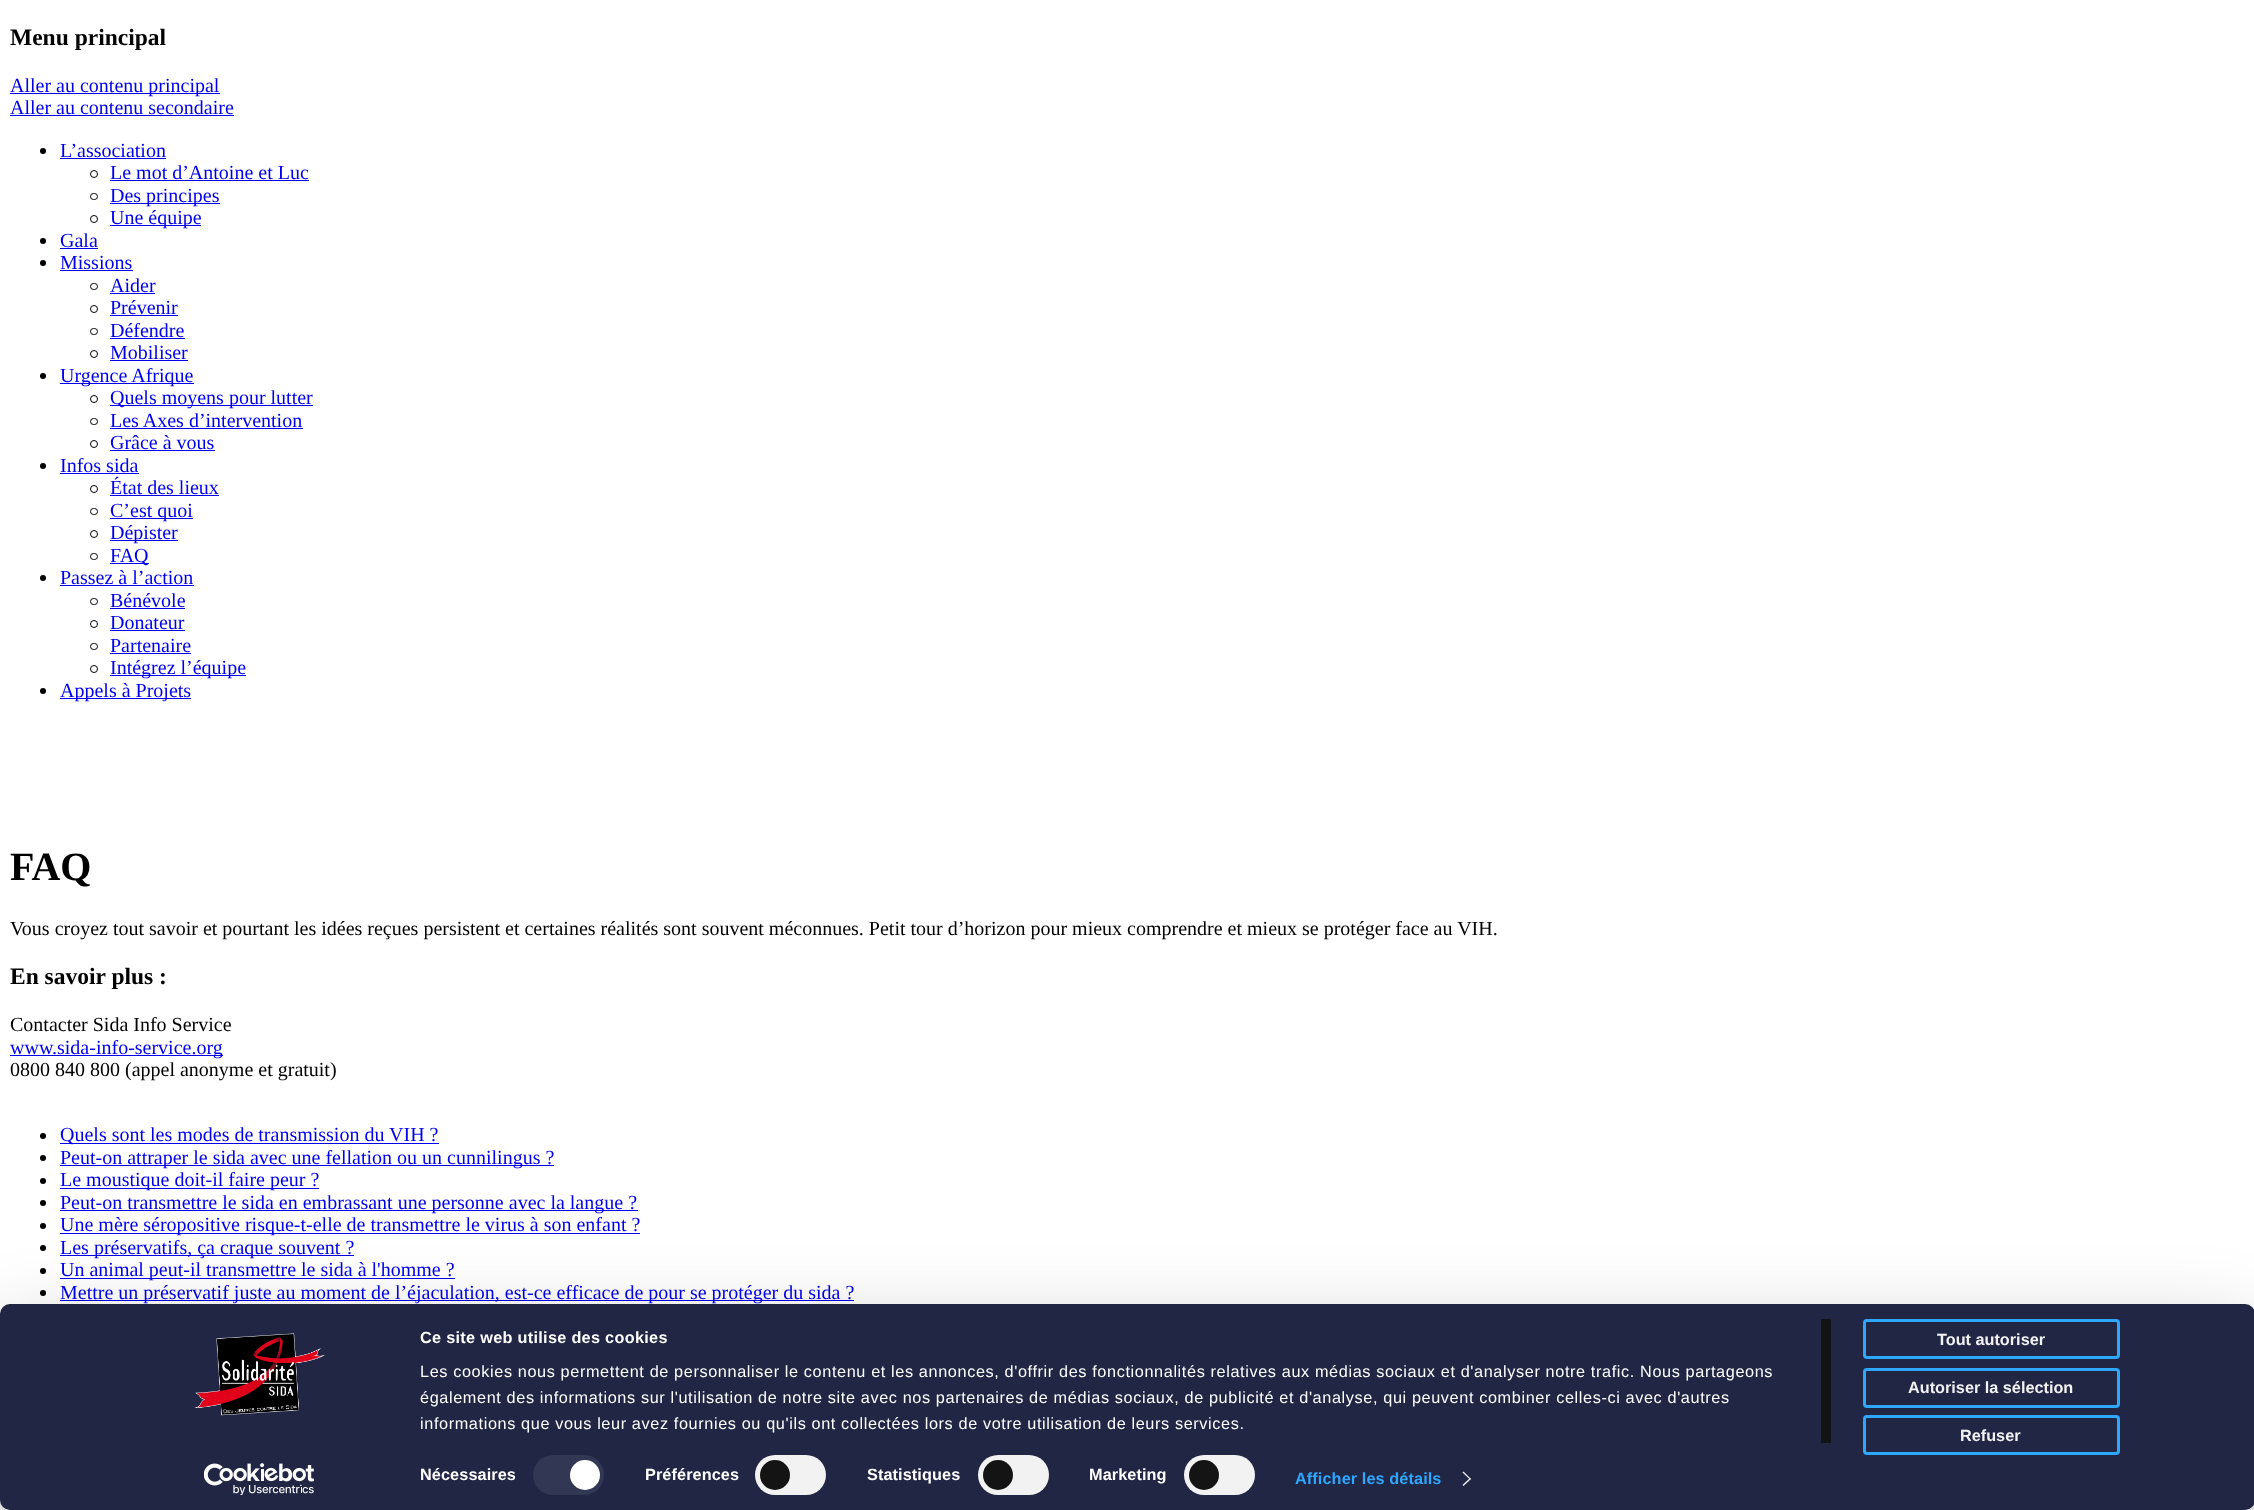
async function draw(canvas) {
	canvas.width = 2254;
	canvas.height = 1510;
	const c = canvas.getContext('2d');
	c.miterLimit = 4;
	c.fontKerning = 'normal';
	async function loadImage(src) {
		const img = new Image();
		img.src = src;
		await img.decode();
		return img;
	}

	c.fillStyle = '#fff';
	c.fillRect(0, 0, 2254, 1510);
	c.font = 'bold 23.5px Liberation Serif';
	c.fillStyle = '#000';
	c.fillText('Menu principal', 10, 45);
	c.fillStyle = '#00e';
	c.fillRect(10, 93, 210, 1);
	c.font = '20px Liberation Serif';
	c.fillText('Aller au contenu principal', 10, 92);
	c.fillText('Aller au contenu secondaire', 10, 114);
	c.fillRect(10, 115, 224, 1);
	c.fillStyle = '#000';
	c.beginPath();
	c.arc(43, 151, 3, 0, 2 * Math.PI);
	c.fill();
	c.fillStyle = '#00e';
	c.fillText('L’association', 60, 157);
	c.fillRect(60, 158, 106, 1);
	c.beginPath();
	c.arc(94, 174, 3.5, 0, 2 * Math.PI);
	c.strokeStyle = '#000';
	c.stroke();
	c.fillText('Le mot d’Antoine et Luc', 110, 179);
	c.fillRect(110, 180, 199, 1);
	c.beginPath();
	c.roundRect(90.5, 193.5, 7, 6, 3);
	c.stroke();
	c.fillRect(110, 203, 110, 1);
	c.fillText('Des principes', 110, 202);
	c.beginPath();
	c.arc(94, 219, 3.5, 0, 2 * Math.PI);
	c.stroke();
	c.fillRect(110, 225, 91, 1);
	c.fillText('Une équipe', 110, 224);
	c.fillStyle = '#000';
	c.beginPath();
	c.arc(43, 241, 3, 0, 2 * Math.PI);
	c.fill();
	c.fillStyle = '#00e';
	c.fillText('Gala', 60, 247);
	c.fillRect(60, 248, 38, 1);
	c.fillStyle = '#000';
	c.beginPath();
	c.arc(43, 263, 3, 0, 2 * Math.PI);
	c.fill();
	c.fillStyle = '#00e';
	c.fillText('Missions', 60, 269);
	c.fillRect(60, 270, 73, 1);
	c.beginPath();
	c.roundRect(90.5, 283.5, 7, 6, 3);
	c.stroke();
	c.fillText('Aider', 110, 292);
	c.fillRect(110, 293, 45, 1);
	c.beginPath();
	c.arc(94, 309, 3.5, 0, 2 * Math.PI);
	c.stroke();
	c.fillText('Prévenir', 110, 314);
	c.fillRect(110, 315, 68, 1);
	c.beginPath();
	c.roundRect(90.5, 328.5, 7, 6, 3);
	c.stroke();
	c.fillText('Défendre', 110, 337);
	c.fillRect(110, 338, 75, 1);
	c.beginPath();
	c.arc(94, 354, 3.5, 0, 2 * Math.PI);
	c.stroke();
	c.fillText('Mobiliser', 110, 359);
	c.fillRect(110, 360, 78, 1);
	c.fillStyle = '#000';
	c.beginPath();
	c.arc(43, 376, 3, 0, 2 * Math.PI);
	c.fill();
	c.fillStyle = '#00e';
	c.fillRect(60, 383, 134, 1);
	c.fillText('Urgence Afrique', 60, 382);
	c.beginPath();
	c.arc(94, 399, 3.5, 0, 2 * Math.PI);
	c.stroke();
	c.fillRect(110, 405, 203, 1);
	c.fillText('Quels moyens pour lutter', 110, 404);
	c.beginPath();
	c.roundRect(90.5, 418.5, 7, 6, 3);
	c.stroke();
	c.fillText('Les Axes d’intervention', 110, 427);
	c.fillRect(110, 428, 193, 1);
	c.beginPath();
	c.arc(94, 444, 3.5, 0, 2 * Math.PI);
	c.stroke();
	c.fillText('Grâce à vous', 110, 449);
	c.fillRect(110, 450, 105, 1);
	c.fillStyle = '#000';
	c.beginPath();
	c.arc(43, 466, 3, 0, 2 * Math.PI);
	c.fill();
	c.fillStyle = '#00e';
	c.fillText('Infos sida', 60, 472);
	c.fillRect(60, 473, 79, 1);
	c.beginPath();
	c.arc(94, 489, 3.5, 0, 2 * Math.PI);
	c.stroke();
	c.fillText('État des lieux', 110, 494);
	c.fillRect(110, 495, 109, 1);
	c.beginPath();
	c.roundRect(90.5, 508.5, 7, 6, 3);
	c.stroke();
	c.fillRect(110, 518, 83, 1);
	c.fillText('C’est quoi', 110, 517);
	c.beginPath();
	c.arc(94, 534, 3.5, 0, 2 * Math.PI);
	c.stroke();
	c.fillRect(110, 540, 68, 1);
	c.fillText('Dépister', 110, 539);
	c.beginPath();
	c.roundRect(90.5, 553.5, 7, 6, 3);
	c.stroke();
	c.fillRect(110, 563, 39, 1);
	c.fillText('FAQ', 110, 562);
	c.fillStyle = '#000';
	c.beginPath();
	c.arc(43, 578, 3, 0, 2 * Math.PI);
	c.fill();
	c.fillStyle = '#00e';
	c.fillText('Passez à l’action', 60, 584);
	c.fillRect(60, 585, 134, 1);
	c.beginPath();
	c.roundRect(90.5, 598.5, 7, 6, 3);
	c.stroke();
	c.fillText('Bénévole', 110, 607);
	c.fillRect(110, 608, 75, 1);
	c.beginPath();
	c.arc(94, 624, 3.5, 0, 2 * Math.PI);
	c.stroke();
	c.fillText('Donateur', 110, 629);
	c.fillRect(110, 630, 75, 1);
	c.beginPath();
	c.roundRect(90.5, 643.5, 7, 6, 3);
	c.stroke();
	c.fillText('Partenaire', 110, 652);
	c.fillRect(110, 653, 81, 1);
	c.beginPath();
	c.arc(94, 669, 3.5, 0, 2 * Math.PI);
	c.stroke();
	c.fillRect(110, 675, 136, 1);
	c.fillText('Intégrez l’équipe', 110, 674);
	c.fillStyle = '#000';
	c.beginPath();
	c.arc(43, 691, 3, 0, 2 * Math.PI);
	c.fill();
	c.fillStyle = '#00e';
	c.fillRect(60, 698, 131, 1);
	c.fillText('Appels à Projets', 60, 697);
	c.font = 'bold 40px Liberation Serif';
	c.fillStyle = '#000';
	c.fillText('FAQ', 10, 880);
	c.font = '20px Liberation Serif';
	c.fillText('Vous croyez tout savoir et pourtant les idées reçues persistent et certaines réalités sont souvent méconnues. Petit tour d’horizon pour mieux comprendre et mieux se protéger face au VIH.', 10, 935);
	c.font = 'bold 23.5px Liberation Serif';
	c.fillText('En savoir plus :', 10, 984);
	c.font = '20px Liberation Serif';
	c.fillText('Contacter Sida Info Service', 10, 1031);
	c.fillStyle = '#00e';
	c.fillRect(10, 1055, 213, 1);
	c.fillText('www.sida-info-service.org', 10, 1054);
	c.fillStyle = '#000';
	c.fillText('0800 840 800 (appel anonyme et gratuit)', 10, 1076);
	c.beginPath();
	c.arc(43, 1136, 3, 0, 2 * Math.PI);
	c.fill();
	c.fillStyle = '#00e';
	c.fillRect(60, 1143, 379, 1);
	c.fillText('Quels sont les modes de transmission du VIH ?', 60, 1141);
	c.fillStyle = '#000';
	c.beginPath();
	c.arc(43, 1158, 3, 0, 2 * Math.PI);
	c.fill();
	c.fillStyle = '#00e';
	c.fillRect(60, 1165, 494, 1);
	c.fillText('Peut-on attraper le sida avec une fellation ou un cunnilingus ?', 60, 1164);
	c.fillStyle = '#000';
	c.beginPath();
	c.arc(43, 1181, 3, 0, 2 * Math.PI);
	c.fill();
	c.fillStyle = '#00e';
	c.fillRect(60, 1188, 259, 1);
	c.fillText('Le moustique doit-il faire peur ?', 60, 1186);
	c.fillStyle = '#000';
	c.beginPath();
	c.arc(43, 1203, 3, 0, 2 * Math.PI);
	c.fill();
	c.fillStyle = '#00e';
	c.fillRect(60, 1210, 578, 1);
	c.fillText('Peut-on transmettre le sida en embrassant une personne avec la langue ?', 60, 1209);
	c.fillStyle = '#000';
	c.beginPath();
	c.arc(43, 1226, 3, 0, 2 * Math.PI);
	c.fill();
	c.fillStyle = '#00e';
	c.fillRect(60, 1233, 580, 1);
	c.fillText('Une mère séropositive risque-t-elle de transmettre le virus à son enfant ?', 60, 1231);
	c.fillStyle = '#000';
	c.beginPath();
	c.arc(43, 1248, 3, 0, 2 * Math.PI);
	c.fill();
	c.fillStyle = '#00e';
	c.fillRect(60, 1255, 294, 1);
	c.fillText('Les préservatifs, ça craque souvent ?', 60, 1254);
	c.fillStyle = '#000';
	c.beginPath();
	c.arc(43, 1271, 3, 0, 2 * Math.PI);
	c.fill();
	c.fillStyle = '#00e';
	c.fillRect(60, 1278, 395, 1);
	c.fillText('Un animal peut-il transmettre le sida à l\'homme ?', 60, 1276);
	c.fillStyle = '#000';
	c.beginPath();
	c.arc(43, 1293, 3, 0, 2 * Math.PI);
	c.fill();
	c.fillStyle = '#00e';
	c.fillRect(60, 1300, 794, 1);
	c.fillText('Mettre un préservatif juste au moment de l’éjaculation, est-ce efficace de pour se protéger du sida ?', 60, 1299);
	c.fillStyle = '#0000004d';
	c.filter = 'blur(44px)';
	c.beginPath();
	c.roundRect(0, 1341, 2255, 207, 10);
	c.fill();
	c.filter = 'none';
	c.fillStyle = '#202644';
	c.beginPath();
	c.roundRect(0, 1304, 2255, 206, 10);
	c.fill();
	c.drawImage(await loadImage('img1.png'), 194, 1333, 131, 83);
	c.drawImage(await loadImage('img2.png'), 204, 1463, 110, 32);
	c.letterSpacing = '0.3px';
	c.font = 'bold 16.25px Liberation Sans';
	c.fillStyle = '#fff';
	c.fillText('Ce site web utilise des cookies', 420, 1343);
	c.letterSpacing = '0.62px';
	c.font = '16.25px Liberation Sans';
	for (const [text, x, y] of [
		['Les cookies nous permettent de personnaliser le contenu et les annonces, d\'offrir des fonctionnalités relatives aux médias sociaux et d\'analyser notre trafic. Nous partageons', 420, 1377],
		['également des informations sur l\'utilisation de notre site avec nos partenaires de médias sociaux, de publicité et d\'analyse, qui peuvent combiner celles-ci avec d\'autres', 420, 1403],
		['informations que vous leur avez fournies ou qu\'ils ont collectées lors de votre utilisation de leurs services.', 420, 1429],
	]) {
		c.fillText(text, x, y);
	}
	c.fillStyle = '#141414';
	c.fillRect(1821, 1319, 10, 124);
	c.letterSpacing = '0.1px';
	c.font = 'bold 16.25px Liberation Sans';
	c.fillStyle = '#fff';
	c.fillText('Nécessaires', 420, 1480);
	c.fillStyle = '#323753';
	c.beginPath();
	c.roundRect(533, 1455, 71, 40, 20);
	c.fill();
	c.fillStyle = '#fff';
	c.beginPath();
	c.arc(585, 1475, 15, 0, 2 * Math.PI);
	c.fill();
	c.fillText('Préférences', 645, 1480);
	c.fillStyle = '#f2f2f2';
	c.beginPath();
	c.roundRect(755, 1455, 71, 40, 20);
	c.fill();
	c.fillStyle = '#141414';
	c.beginPath();
	c.arc(775, 1475, 15, 0, 2 * Math.PI);
	c.fill();
	c.fillStyle = '#fff';
	c.fillText('Statistiques', 867, 1480);
	c.fillStyle = '#f2f2f2';
	c.beginPath();
	c.roundRect(978, 1455, 71, 40, 20);
	c.fill();
	c.fillStyle = '#141414';
	c.beginPath();
	c.arc(998, 1475, 15, 0, 2 * Math.PI);
	c.fill();
	c.fillStyle = '#fff';
	c.fillText('Marketing', 1089, 1480);
	c.fillStyle = '#f2f2f2';
	c.beginPath();
	c.roundRect(1184, 1455, 71, 40, 20);
	c.fill();
	c.fillStyle = '#141414';
	c.beginPath();
	c.arc(1204, 1475, 15, 0, 2 * Math.PI);
	c.fill();
	c.fillStyle = '#2ea7ff';
	c.fillText('Afficher les détails', 1295, 1484);
	c.fillStyle = '#f2f2f2';
	c.beginPath();
	c.moveTo(1463.5, 1471.5);
	c.lineTo(1471, 1479);
	c.lineTo(1470, 1479.5);
	c.lineTo(1462.5, 1472.5);
	c.closePath();
	c.fill();
	c.beginPath();
	c.moveTo(1470, 1478);
	c.lineTo(1471, 1479);
	c.lineTo(1463.5, 1486);
	c.lineTo(1462.5, 1485);
	c.closePath();
	c.fill();
	c.beginPath();
	c.roundRect(1864.5, 1320.5, 254, 37, 2.5);
	c.strokeStyle = '#2ea7ff';
	c.lineWidth = 3;
	c.stroke();
	c.letterSpacing = '0px';
	c.fillText('Tout autoriser', 1937, 1345);
	c.beginPath();
	c.roundRect(1864.5, 1369.5, 254, 37, 2.5);
	c.stroke();
	c.fillText('Autoriser la sélection', 1908, 1393);
	c.beginPath();
	c.roundRect(1864.5, 1416.5, 254, 37, 2.5);
	c.stroke();
	c.fillText('Refuser', 1960, 1441);
}

draw(document.querySelector('canvas'));
